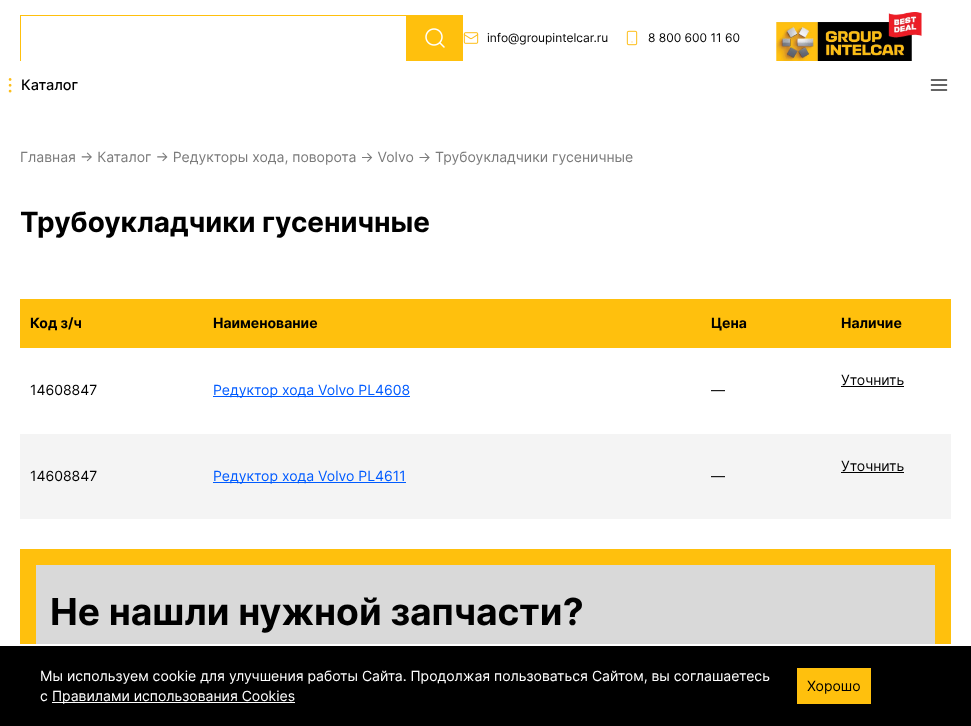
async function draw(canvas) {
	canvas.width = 971;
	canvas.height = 726;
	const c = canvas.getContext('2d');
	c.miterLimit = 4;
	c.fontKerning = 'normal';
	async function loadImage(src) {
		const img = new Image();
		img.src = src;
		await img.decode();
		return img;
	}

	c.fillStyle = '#fff';
	c.fillRect(0, 0, 971, 726);
	c.strokeStyle = '#ffc00d';
	c.strokeRect(20.5, 15.5, 386, 46);
	c.fillStyle = '#ffc00d';
	c.fillRect(407, 15, 56, 46);
	c.drawImage(await loadImage('img1.png'), 425, 28, 20, 20);
	c.drawImage(await loadImage('img2.png'), 463, 32, 16, 12);
	c.font = '12px Inter';
	c.fillStyle = '#000';
	c.fillText('info@groupintelcar.ru', 487, 42);
	c.drawImage(await loadImage('img3.png'), 626, 30, 12, 16);
	c.fillText('8 800 600 11 60', 648, 42);
	c.drawImage(await loadImage('img4.png'), 776, 12, 146, 49);
	c.fillStyle = '#fff';
	c.fillRect(20, 61, 387, 1);
	c.drawImage(await loadImage('img5.png'), 8, 78, 4, 15);
	c.font = '500 14.5px Inter';
	c.fillStyle = '#000';
	c.fillText('Каталог', 21, 90);
	c.drawImage(await loadImage('img6.png'), 930, 79, 18, 12);
	c.font = '14px Inter';
	c.fillStyle = '#7b7b7b';
	c.fillText('Главная → Каталог → Редукторы хода, поворота → Volvo → Трубоукладчики гусеничные', 20, 162);
	c.font = 'bold 27.9px Inter';
	c.fillStyle = '#000';
	c.fillText('Трубоукладчики гусеничные', 20, 232);
	c.fillStyle = '#ffc00d';
	c.fillRect(20, 299, 931, 49);
	c.font = 'bold 14px Inter';
	c.fillStyle = '#000';
	for (const [text, x, y] of [
		['Код з/ч', 30, 328],
		['Наименование', 213, 328],
		['Цена', 711, 328],
		['Наличие', 841, 328],
	]) {
		c.fillText(text, x, y);
	}
	c.font = '14px Inter';
	c.fillText('Уточнить', 841, 385);
	c.fillRect(841, 386, 63, 1);
	c.fillText('14608847', 30, 395);
	c.fillStyle = '#005bff';
	c.fillRect(213, 396, 197, 1);
	c.fillText('Редуктор хода Volvo PL4608', 213, 395);
	c.fillStyle = '#000';
	c.fillText('—', 711, 395);
	c.fillStyle = '#f4f4f4';
	c.fillRect(20, 434, 931, 85);
	c.fillStyle = '#000';
	c.fillText('Уточнить', 841, 471);
	c.fillRect(841, 472, 63, 1);
	c.fillText('14608847', 30, 481);
	c.fillStyle = '#005bff';
	c.fillRect(213, 482, 193, 1);
	c.fillText('Редуктор хода Volvo PL4611', 213, 481);
	c.fillStyle = '#000';
	c.fillText('—', 711, 481);
	c.fillStyle = '#d9d9d9';
	c.fillRect(36, 565, 899, 79);
	c.lineWidth = 16;
	c.strokeRect(28, 557, 915, 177);
	c.font = 'bold 37.25px Inter';
	c.fillStyle = '#000';
	c.fillText('Не нашли нужной запчасти?', 50, 625);
	c.fillRect(0, 646, 971, 80);
	c.fillStyle = '#fff';
	c.fillRect(20, 644, 931, 2);
	c.font = '14px Inter';
	c.fillText('Мы используем cookie для улучшения работы Сайта. Продолжая пользоваться Сайтом, вы соглашаетесь', 40, 681);
	c.fillText('с', 40, 701);
	c.fillRect(52, 702, 243, 1);
	c.fillText('Правилами использования Cооkies', 52, 701);
	c.fillStyle = '#ffc00d';
	c.fillRect(797, 668, 74, 36);
	c.fillStyle = '#000';
	c.fillText('Хорошо', 807, 691);
}

draw(document.querySelector('canvas'));
